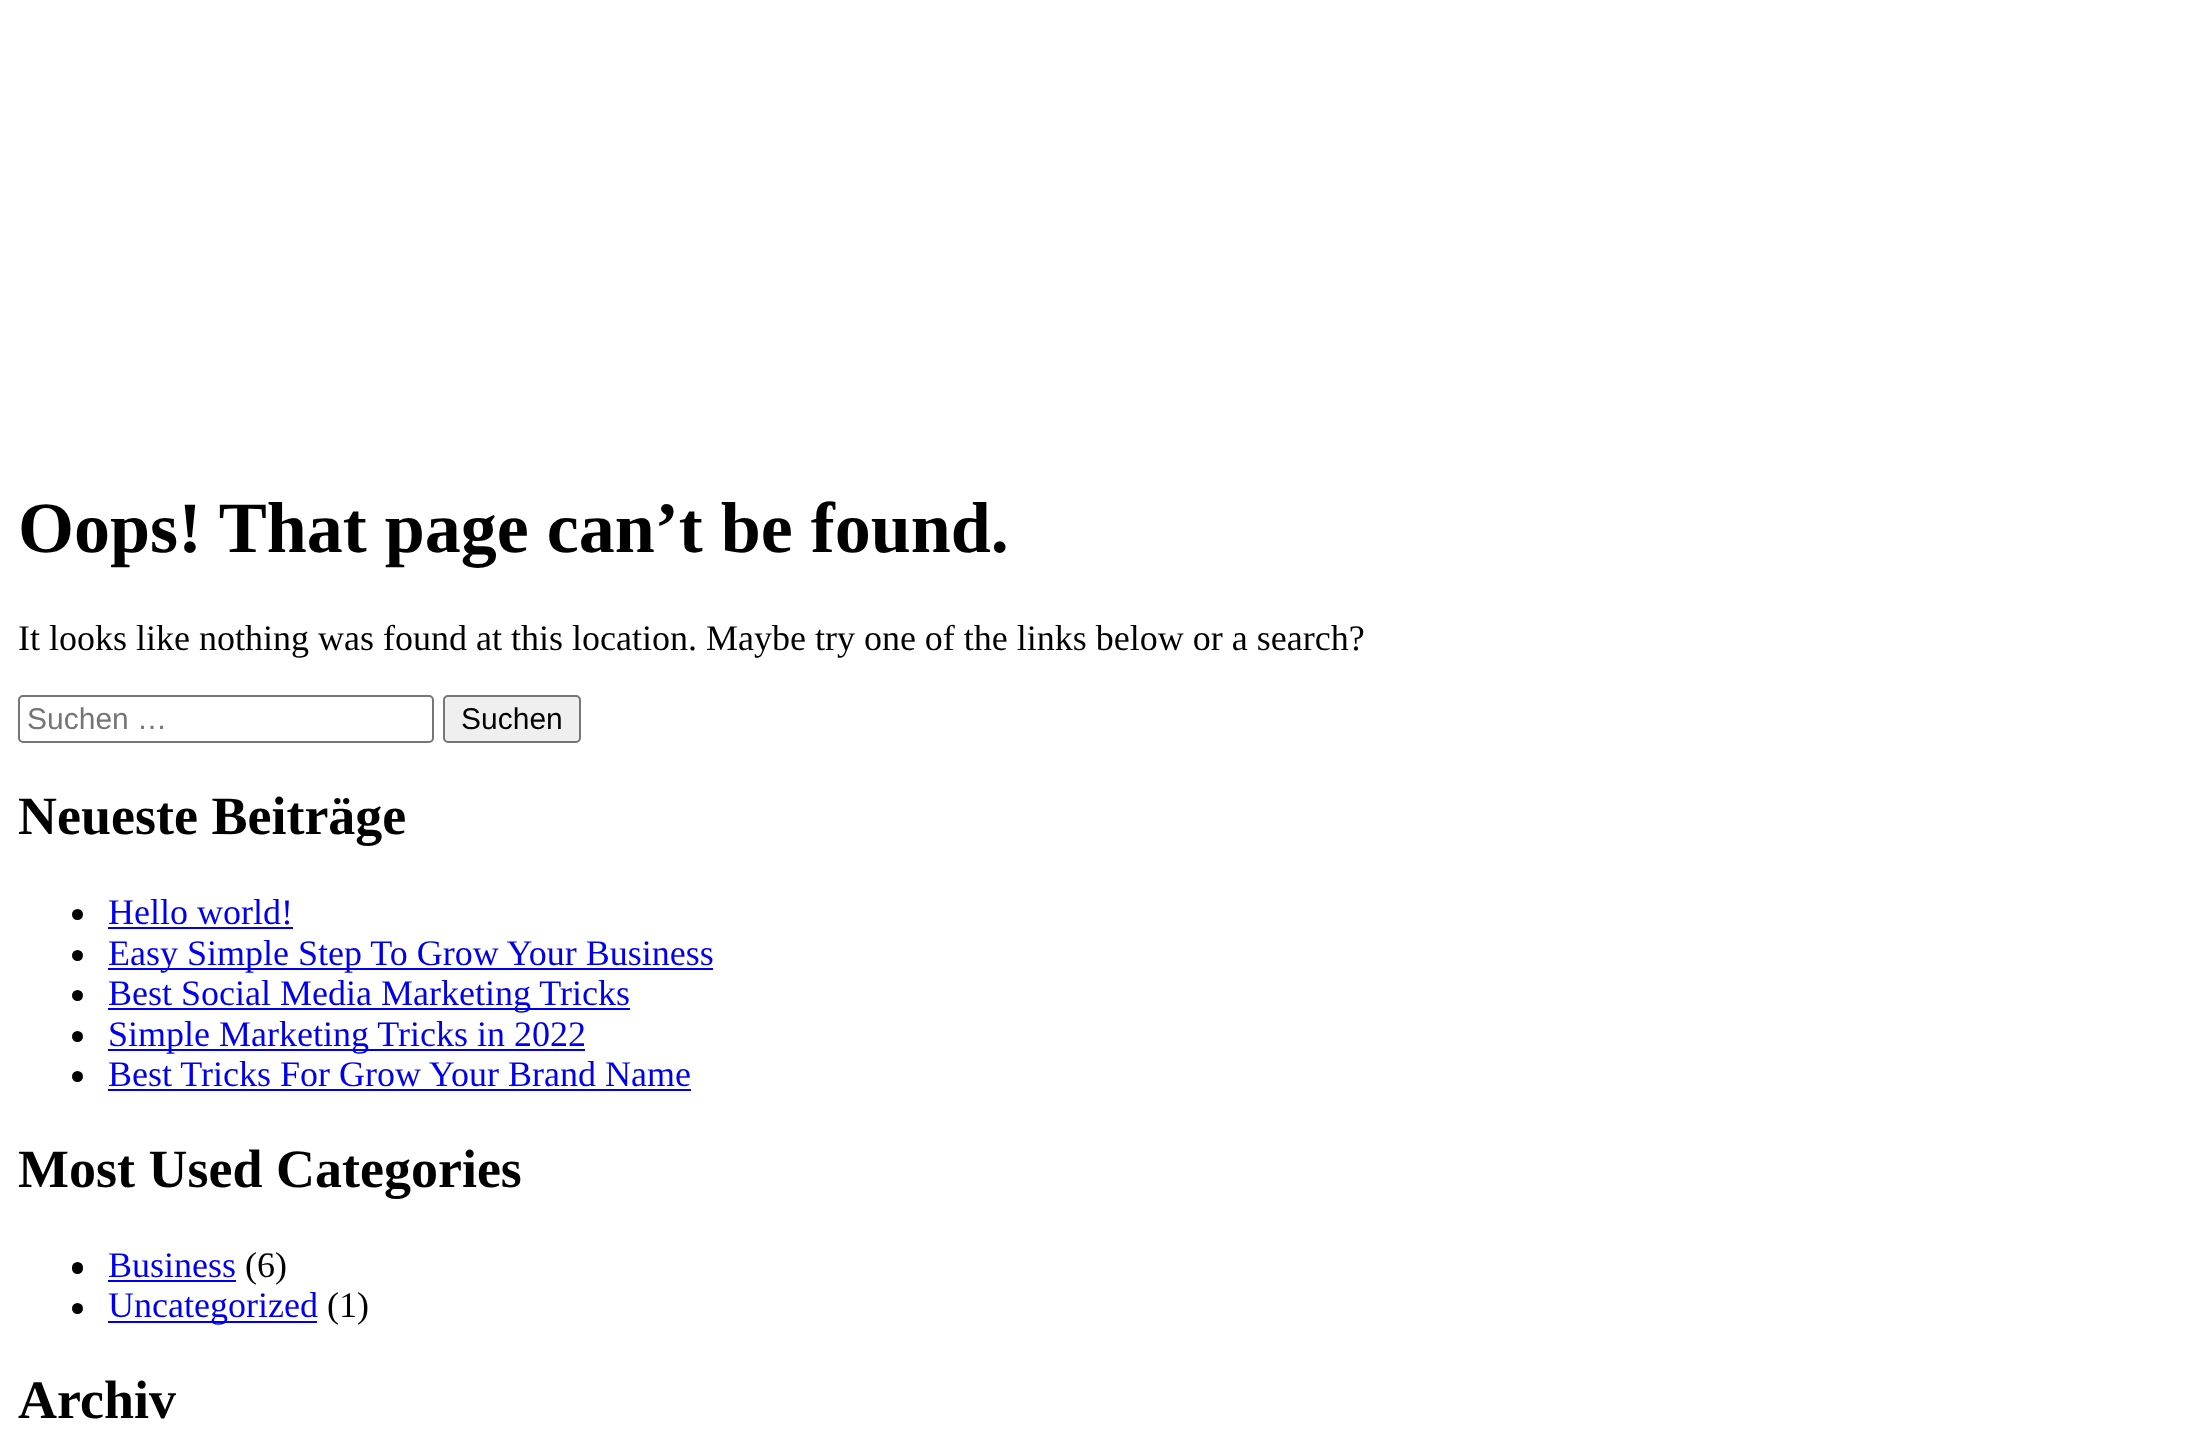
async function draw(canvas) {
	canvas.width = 2202;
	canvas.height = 1433;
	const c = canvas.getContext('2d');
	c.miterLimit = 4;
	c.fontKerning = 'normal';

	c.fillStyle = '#fff';
	c.fillRect(0, 0, 2202, 1433);
	c.font = 'bold 72px Liberation Serif';
	c.fillStyle = '#000';
	c.fillText('Oops! That page can’t be found.', 18, 552);
	c.font = '36px Liberation Serif';
	c.fillText('It looks like nothing was found at this location. Maybe try one of the links below or a search?', 18, 650);
	c.beginPath();
	c.roundRect(19, 696, 414, 46, 4);
	c.strokeStyle = '#767676';
	c.lineWidth = 2;
	c.stroke();
	c.font = '30px Liberation Sans';
	c.fillStyle = '#757575';
	c.fillText('Suchen …', 27, 729);
	c.fillStyle = '#efefef';
	c.beginPath();
	c.roundRect(444, 696, 136, 46, 4);
	c.fill();
	c.stroke();
	c.fillStyle = '#000';
	c.fillText('Suchen', 461, 729);
	c.font = 'bold 54px Liberation Serif';
	c.fillText('Neueste Beiträge', 18, 834);
	c.beginPath();
	c.arc(77.5, 914.5, 5.5, 0, 2 * Math.PI);
	c.fill();
	c.font = '36px Liberation Serif';
	c.fillStyle = '#00e';
	c.fillText('Hello world!', 108, 924);
	c.fillRect(108, 927, 185, 2);
	c.fillStyle = '#000';
	c.beginPath();
	c.arc(77.5, 955.5, 5.5, 0, 2 * Math.PI);
	c.fill();
	c.fillStyle = '#00e';
	c.fillRect(108, 968, 605, 2);
	c.fillText('Easy Simple Step To Grow Your Business', 108, 965);
	c.fillStyle = '#000';
	c.beginPath();
	c.arc(77.5, 995.5, 5.5, 0, 2 * Math.PI);
	c.fill();
	c.fillStyle = '#00e';
	c.fillRect(108, 1008, 522, 2);
	c.fillText('Best Social Media Marketing Tricks', 108, 1005);
	c.fillStyle = '#000';
	c.beginPath();
	c.arc(77.5, 1036.5, 5.5, 0, 2 * Math.PI);
	c.fill();
	c.fillStyle = '#00e';
	c.fillRect(108, 1049, 477, 2);
	c.fillText('Simple Marketing Tricks in 2022', 108, 1046);
	c.fillStyle = '#000';
	c.beginPath();
	c.arc(77.5, 1076.5, 5.5, 0, 2 * Math.PI);
	c.fill();
	c.fillStyle = '#00e';
	c.fillText('Best Tricks For Grow Your Brand Name', 108, 1086);
	c.fillRect(108, 1089, 583, 2);
	c.font = 'bold 54px Liberation Serif';
	c.fillStyle = '#000';
	c.fillText('Most Used Categories', 18, 1187);
	c.beginPath();
	c.roundRect(72, 1262, 11, 12, 5.5);
	c.fill();
	c.font = '36px Liberation Serif';
	c.fillStyle = '#00e';
	c.fillText('Business', 108, 1277);
	c.fillRect(108, 1280, 128, 2);
	c.fillStyle = '#000';
	c.fillText('(6)', 245, 1277);
	c.beginPath();
	c.arc(77.5, 1308.5, 5.5, 0, 2 * Math.PI);
	c.fill();
	c.fillStyle = '#00e';
	c.fillRect(108, 1321, 209, 2);
	c.fillText('Uncategorized', 108, 1317);
	c.fillStyle = '#000';
	c.fillText('(1)', 327, 1317);
	c.font = 'bold 54px Liberation Serif';
	c.fillText('Archiv', 18, 1418);
}

draw(document.querySelector('canvas'));
